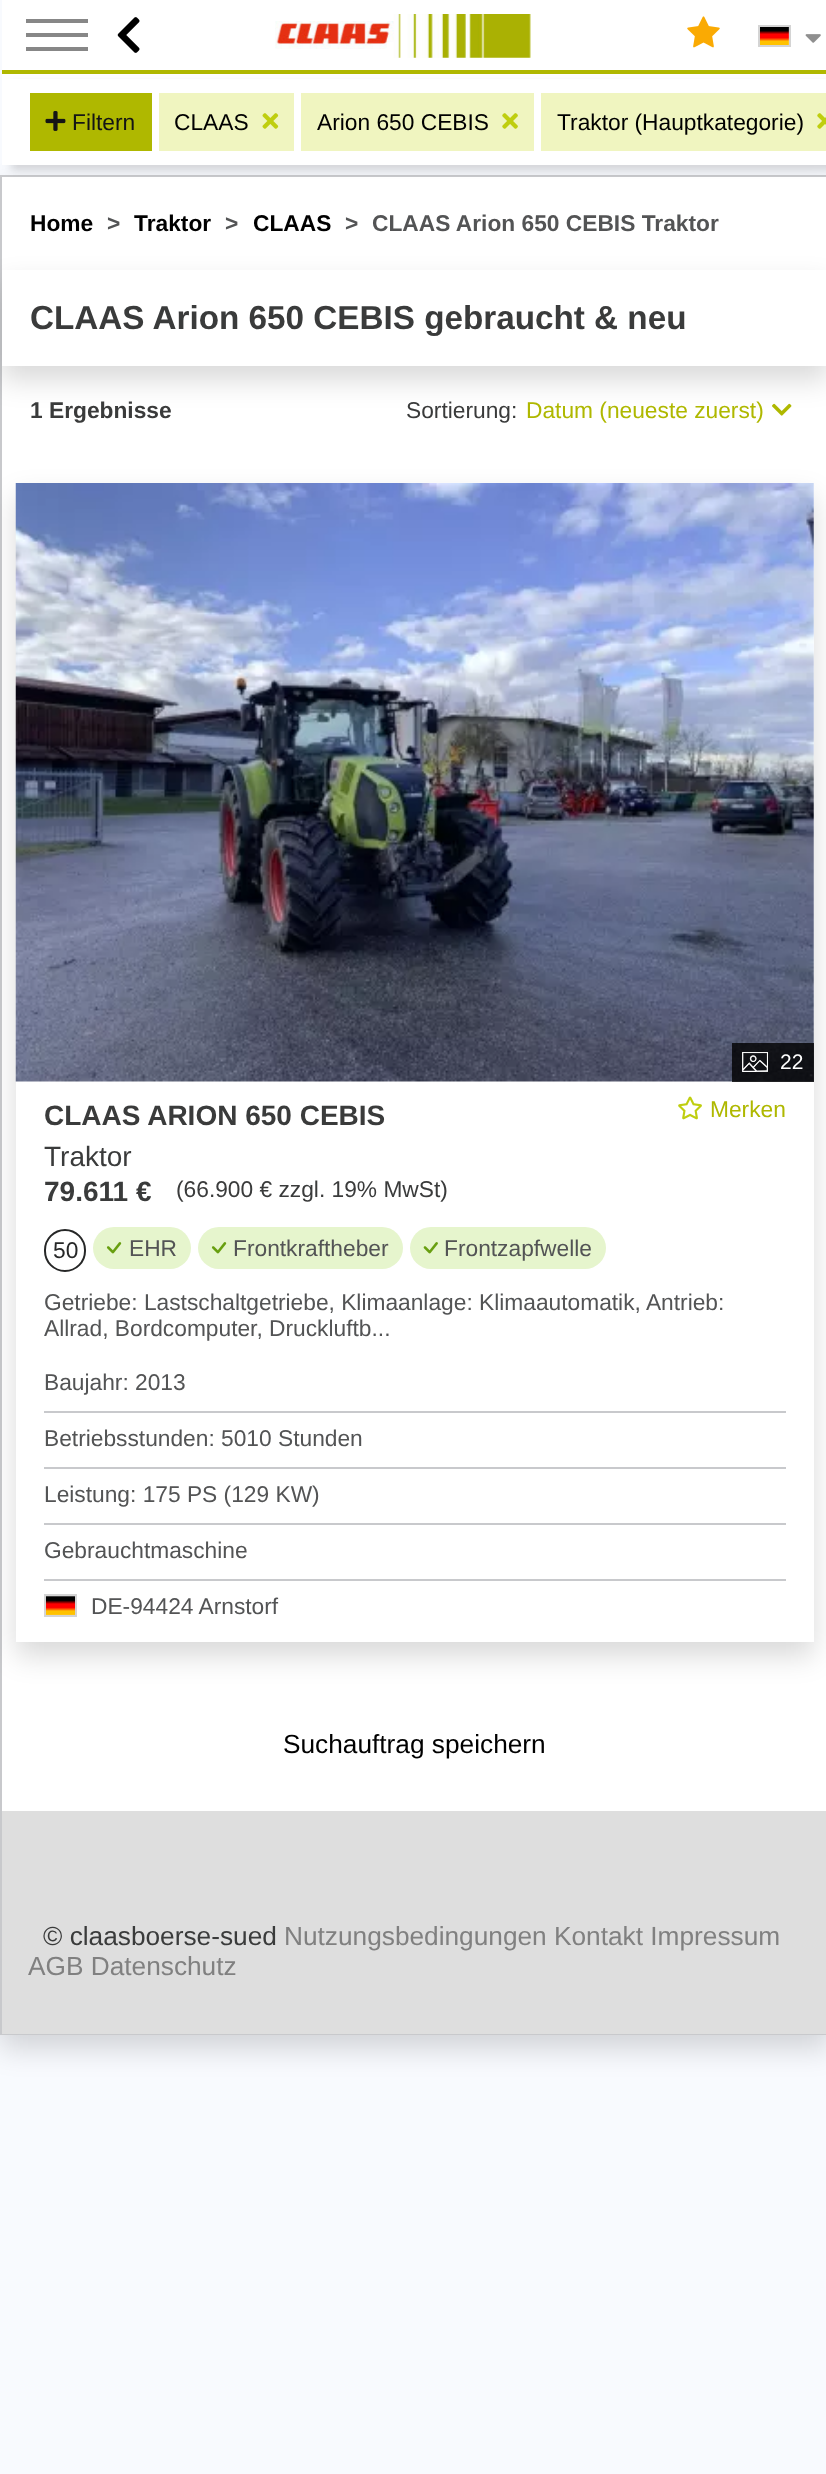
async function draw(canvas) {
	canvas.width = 826;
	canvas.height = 2474;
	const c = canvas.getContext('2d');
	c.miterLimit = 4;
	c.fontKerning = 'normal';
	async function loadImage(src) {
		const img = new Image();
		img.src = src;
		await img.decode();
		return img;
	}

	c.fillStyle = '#f8fafe';
	c.fillRect(0, 0, 826, 2474);
	c.fillStyle = '#00000026';
	c.filter = 'blur(14px)';
	c.beginPath();
	c.rect(0, 189, 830, 1860);
	c.fill();
	c.filter = 'none';
	c.fillStyle = '#fff';
	c.fillRect(2, 177, 824, 1634);
	c.strokeStyle = '#c8c9cc';
	c.lineWidth = 2;
	c.strokeRect(1, 176, 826, 1858);
	c.fillRect(2, 0, 824, 79);
	c.fillStyle = '#00000026';
	c.filter = 'blur(4.5px)';
	c.beginPath();
	c.rect(11, 84, 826, 86);
	c.fill();
	c.filter = 'none';
	for (const [x, y, w, h, color] of [
		[2, 70, 824, 4, '#b0b800'],
		[26, 19, 62, 4, '#878787'],
		[26, 33, 62, 4, '#878787'],
		[26, 47, 62, 4, '#878787'],
	]) {
		c.fillStyle = color;
		c.fillRect(x, y, w, h);
	}
	c.drawImage(await loadImage('img1.png'), 117, 17, 23, 36);
	c.drawImage(await loadImage('img2.png'), 275, 14, 256, 44);
	c.drawImage(await loadImage('img3.png'), 687, 16, 33, 32);
	c.drawImage(await loadImage('img4.png'), 760, 27, 29, 18);
	c.strokeStyle = '#d4d4d4';
	c.strokeRect(759, 26, 31, 20);
	c.drawImage(await loadImage('img5.png'), 805, 34, 16, 9);
	c.fillStyle = '#fff';
	c.fillRect(2, 79, 824, 86);
	c.fillStyle = '#afb800';
	c.fillRect(30, 93, 122, 58);
	c.drawImage(await loadImage('img6.png'), 45, 111, 21, 20);
	c.font = '22.75px Liberation Sans';
	c.fillStyle = '#141515';
	c.fillText('Filtern', 72, 130);
	c.fillStyle = '#f0f5c0';
	c.fillRect(159, 93, 135, 58);
	c.fillStyle = '#000';
	c.fillText('CLAAS', 174, 130);
	c.drawImage(await loadImage('img7.png'), 262, 113, 17, 16);
	c.fillStyle = '#f0f5c0';
	c.fillRect(301, 93, 233, 58);
	c.fillStyle = '#000';
	c.fillText('Arion 650 CEBIS', 317, 130);
	c.drawImage(await loadImage('img8.png'), 502, 113, 16, 16);
	c.fillStyle = '#f0f5c0';
	c.fillRect(541, 93, 285, 58);
	c.fillStyle = '#000';
	c.fillText('Traktor (Hauptkategorie)', 557, 130);
	c.drawImage(await loadImage('img9.png'), 817, 113, 9, 16);
	c.font = 'bold 22.75px Liberation Sans';
	c.fillText('Home', 30, 231);
	c.fillStyle = '#535455';
	c.fillText('>', 107, 231);
	c.fillStyle = '#000';
	c.fillText('Traktor', 134, 231);
	c.fillStyle = '#535455';
	c.fillText('>', 225, 231);
	c.fillStyle = '#000';
	c.fillText('CLAAS', 253, 231);
	c.fillStyle = '#535455';
	c.fillText('>', 345, 231);
	c.fillText('CLAAS Arion 650 CEBIS Traktor', 372, 231);
	c.fillStyle = '#00000026';
	c.filter = 'blur(14px)';
	c.beginPath();
	c.rect(2, 284, 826, 96);
	c.fill();
	c.filter = 'none';
	c.fillStyle = '#fff';
	c.fillRect(2, 270, 824, 96);
	c.font = 'bold 33.25px Liberation Sans';
	c.fillStyle = '#3a3b3b';
	c.fillText('CLAAS Arion 650 CEBIS gebraucht & neu', 30, 329);
	c.font = 'bold 22.75px Liberation Sans';
	c.fillText('1 Ergebnisse', 30, 418);
	c.font = '22.75px Liberation Sans';
	c.fillText('Sortierung:', 406, 418);
	c.fillStyle = '#afb800';
	c.fillText('Datum (neueste zuerst)', 526, 418);
	c.drawImage(await loadImage('img10.png'), 772, 403, 20, 13);
	c.fillStyle = '#00000026';
	c.filter = 'blur(14px)';
	c.beginPath();
	c.rect(16, 497, 798, 1159);
	c.fill();
	c.filter = 'none';
	c.fillStyle = '#fff';
	c.fillRect(16, 483, 798, 1159);
	c.drawImage(await loadImage('img11.png'), 15, 483, 799, 599);
	c.fillStyle = '#000000cc';
	c.fillRect(732, 1043, 82, 39);
	c.drawImage(await loadImage('img12.png'), 742, 1052, 26, 20);
	c.font = '21px Liberation Sans';
	c.fillStyle = '#fff';
	c.fillText('22', 780, 1069);
	c.font = 'bold 28px Liberation Sans';
	c.fillStyle = '#3a3b3b';
	c.fillText('CLAAS ARION 650 CEBIS', 44, 1125);
	c.font = '28px Liberation Sans';
	c.fillText('Traktor', 44, 1166);
	c.drawImage(await loadImage('img13.png'), 678, 1096, 24, 24);
	c.font = '22.75px Liberation Sans';
	c.fillStyle = '#afb800';
	c.fillText('Merken', 710, 1117);
	c.font = 'bold 28px Liberation Sans';
	c.fillStyle = '#3a3b3b';
	c.fillText('79.611 €', 44, 1201);
	c.font = '22.75px Liberation Sans';
	c.fillText('(66.900 € zzgl. 19% MwSt)', 176, 1197);
	c.beginPath();
	c.roundRect(45, 1230, 40, 41, 20);
	c.strokeStyle = '#262727';
	c.stroke();
	c.fillStyle = '#262727';
	c.fillText('50', 53, 1258);
	c.fillStyle = '#e6f5cd';
	c.beginPath();
	c.roundRect(93, 1227, 98, 42, 21);
	c.fill();
	c.drawImage(await loadImage('img14.png'), 106, 1242, 16, 12);
	c.fillStyle = '#535455';
	c.fillText('EHR', 129, 1256);
	c.fillStyle = '#e6f5cd';
	c.beginPath();
	c.roundRect(198, 1227, 205, 42, 21);
	c.fill();
	c.drawImage(await loadImage('img14.png'), 211, 1242, 16, 12);
	c.fillStyle = '#535455';
	c.fillText('Frontkraftheber', 233, 1256);
	c.fillStyle = '#e6f5cd';
	c.beginPath();
	c.roundRect(410, 1227, 196, 42, 21);
	c.fill();
	c.drawImage(await loadImage('img15.png'), 423, 1242, 15, 12);
	c.fillStyle = '#535455';
	for (const [text, x, y] of [
		['Frontzapfwelle', 444, 1256],
		['Getriebe: Lastschaltgetriebe, Klimaanlage: Klimaautomatik, Antrieb:', 44, 1310],
		['Allrad, Bordcomputer, Druckluftb...', 44, 1336],
	]) {
		c.fillText(text, x, y);
	}
	c.fillStyle = '#c8c9cc';
	c.fillRect(44, 1411, 742, 2);
	c.fillStyle = '#535455';
	c.fillText('Baujahr: 2013', 44, 1390);
	c.fillStyle = '#c8c9cc';
	c.fillRect(44, 1467, 742, 2);
	c.fillStyle = '#535455';
	c.fillText('Betriebsstunden: 5010 Stunden', 44, 1446);
	c.fillStyle = '#c8c9cc';
	c.fillRect(44, 1523, 742, 2);
	c.fillStyle = '#535455';
	c.fillText('Leistung: 175 PS (129 KW)', 44, 1502);
	c.fillText('Gebrauchtmaschine', 44, 1558);
	c.fillStyle = '#c8c9cc';
	c.fillRect(44, 1579, 742, 2);
	c.drawImage(await loadImage('img16.png'), 46, 1596, 29, 19);
	c.strokeStyle = '#d4d4d4';
	c.strokeRect(45, 1595, 31, 21);
	c.fillStyle = '#535455';
	c.fillText('DE-94424 Arnstorf', 91, 1614);
	c.font = '26.25px Liberation Sans';
	c.fillStyle = '#000';
	c.fillText('Suchauftrag speichern', 283, 1753);
	c.fillStyle = '#dedede';
	c.fillRect(2, 1811, 824, 223);
	c.fillStyle = '#3a3b3b';
	c.fillText('© claasboerse-sued', 43, 1945);
	c.fillStyle = '#808080';
	c.fillText('Nutzungsbedingungen Kontakt Impressum', 284, 1945);
	c.fillText('AGB Datenschutz', 28, 1975);
}

draw(document.querySelector('canvas'));
